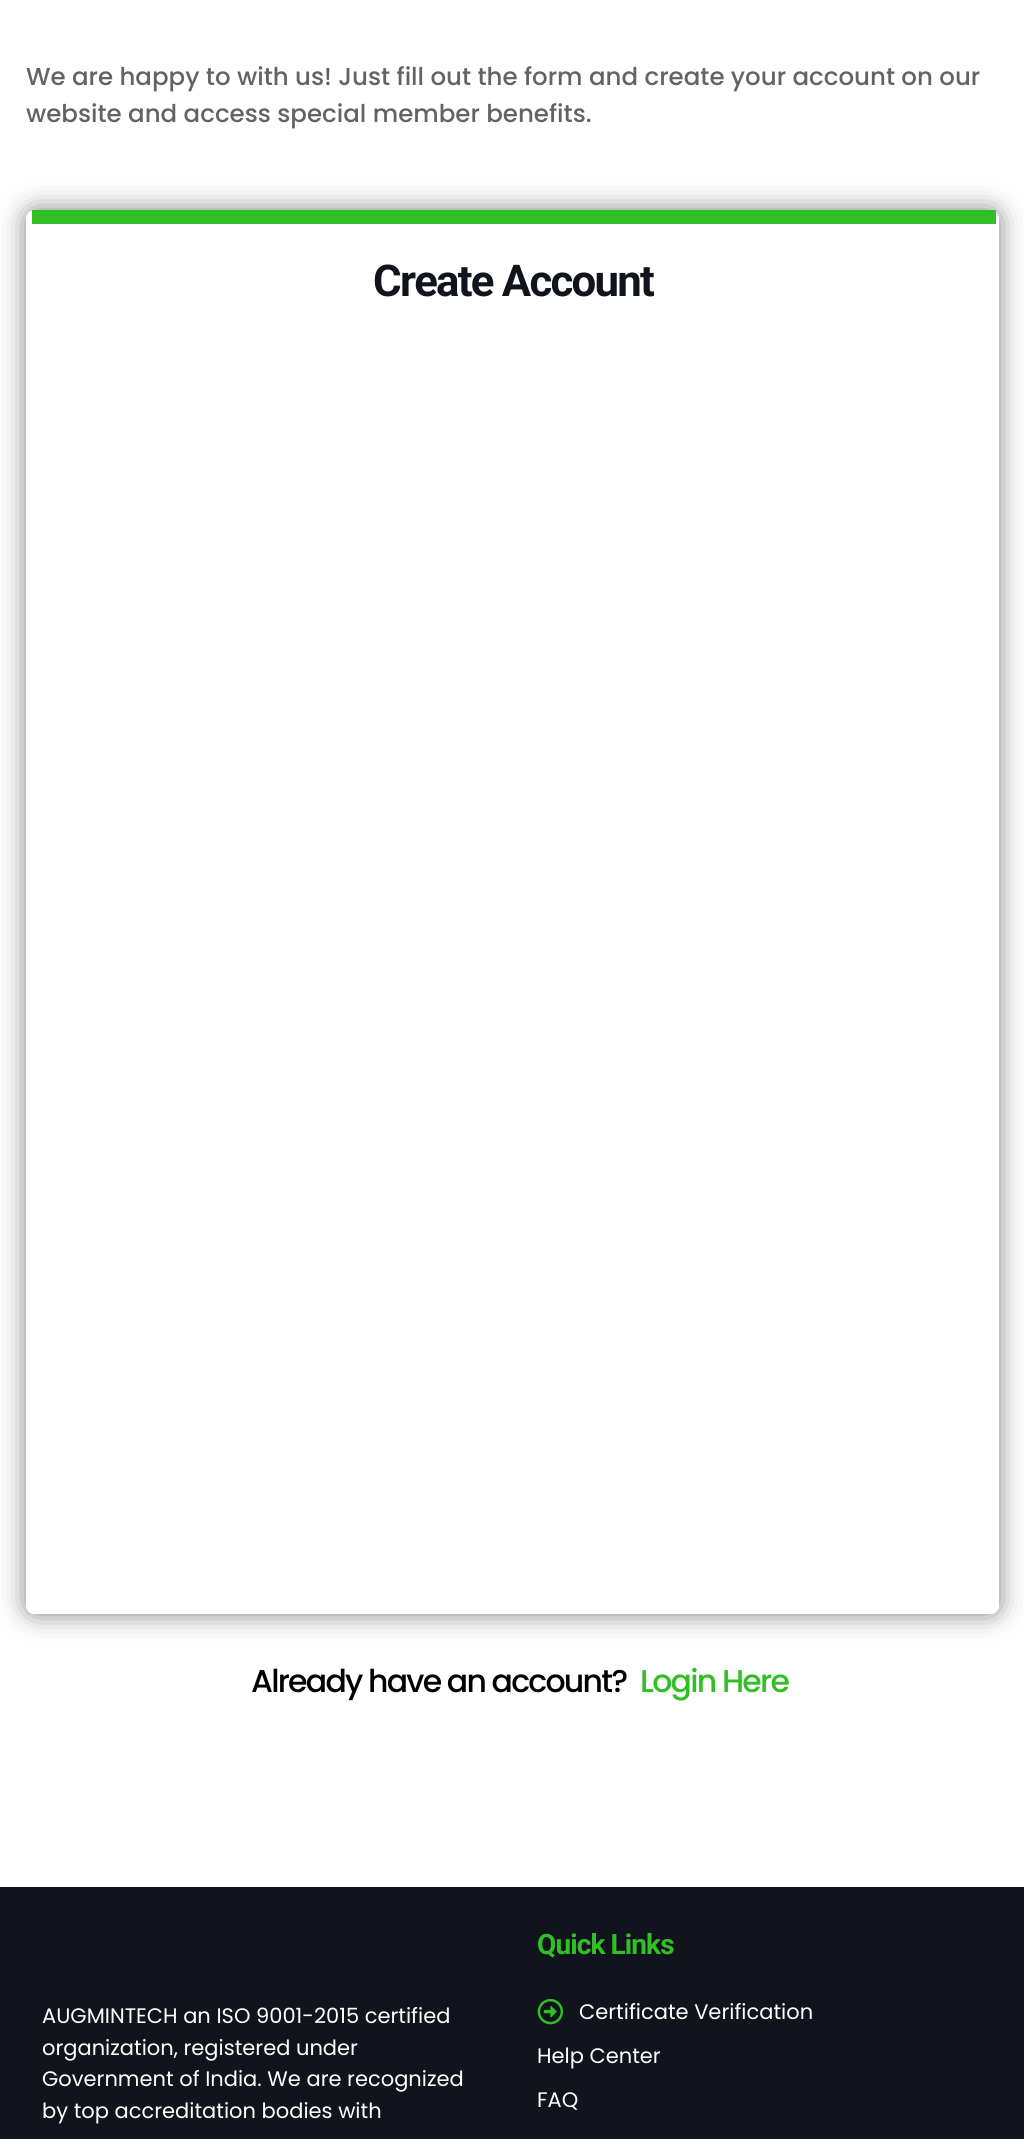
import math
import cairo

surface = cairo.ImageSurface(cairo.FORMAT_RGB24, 1024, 2139)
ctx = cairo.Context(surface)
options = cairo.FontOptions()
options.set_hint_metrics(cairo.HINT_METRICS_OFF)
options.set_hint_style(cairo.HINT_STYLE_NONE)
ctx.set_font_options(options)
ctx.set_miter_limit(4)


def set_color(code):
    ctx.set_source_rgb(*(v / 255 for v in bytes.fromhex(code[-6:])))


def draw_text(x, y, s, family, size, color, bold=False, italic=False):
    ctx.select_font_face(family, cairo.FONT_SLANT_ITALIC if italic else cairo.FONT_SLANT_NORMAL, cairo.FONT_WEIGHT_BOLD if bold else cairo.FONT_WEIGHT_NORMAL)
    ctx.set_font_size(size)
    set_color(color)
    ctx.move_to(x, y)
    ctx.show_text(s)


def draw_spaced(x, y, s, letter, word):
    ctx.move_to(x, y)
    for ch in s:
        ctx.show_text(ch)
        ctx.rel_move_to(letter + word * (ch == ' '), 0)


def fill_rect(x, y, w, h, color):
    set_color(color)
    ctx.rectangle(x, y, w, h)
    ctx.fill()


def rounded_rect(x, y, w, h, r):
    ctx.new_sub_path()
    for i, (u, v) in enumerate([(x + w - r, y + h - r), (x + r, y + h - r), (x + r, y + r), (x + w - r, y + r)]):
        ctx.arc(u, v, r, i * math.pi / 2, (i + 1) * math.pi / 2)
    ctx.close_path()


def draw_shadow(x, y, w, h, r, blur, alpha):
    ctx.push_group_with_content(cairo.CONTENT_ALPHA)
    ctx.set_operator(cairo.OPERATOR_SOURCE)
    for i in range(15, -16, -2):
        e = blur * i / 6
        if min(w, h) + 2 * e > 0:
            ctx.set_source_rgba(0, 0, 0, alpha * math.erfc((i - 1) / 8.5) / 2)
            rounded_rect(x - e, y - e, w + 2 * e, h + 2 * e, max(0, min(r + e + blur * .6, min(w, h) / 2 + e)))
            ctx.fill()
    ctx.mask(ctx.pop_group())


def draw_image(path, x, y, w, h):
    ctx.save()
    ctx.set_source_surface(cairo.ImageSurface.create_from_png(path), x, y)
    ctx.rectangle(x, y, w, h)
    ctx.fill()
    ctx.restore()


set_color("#ffffff")
ctx.paint()
draw_text(26, 85, "We are happy to with us! Just fill out the form and create your account on our", "Poppins Medium", 24.5, "#636363")
draw_text(26, 122, "website and access special member benefits.", "Poppins Medium", 24.5, "#636363")
ctx.save()
ctx.set_fill_rule(cairo.FILL_RULE_EVEN_ODD)
ctx.new_path()
ctx.move_to(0, 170)
ctx.line_to(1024, 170)
ctx.line_to(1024, 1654)
ctx.line_to(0, 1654)
ctx.close_path()
ctx.move_to(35, 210)
ctx.line_to(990, 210)
ctx.curve_to(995, 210, 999, 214, 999, 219)
ctx.line_to(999, 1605)
ctx.curve_to(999, 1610, 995, 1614, 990, 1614)
ctx.line_to(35, 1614)
ctx.curve_to(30, 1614, 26, 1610, 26, 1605)
ctx.line_to(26, 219)
ctx.curve_to(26, 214, 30, 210, 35, 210)
ctx.close_path()
ctx.clip()
set_color("#000000")
draw_shadow(26, 210, 973, 1404, 9, 13, 0.5)
ctx.restore()
set_color("#ffffff")
ctx.new_path()
ctx.move_to(35, 224)
ctx.line_to(999, 224)
ctx.line_to(999, 1605)
ctx.curve_to(999, 1610, 995, 1614, 990, 1614)
ctx.line_to(35, 1614)
ctx.curve_to(30, 1614, 26, 1610, 26, 1605)
ctx.line_to(26, 224)
ctx.close_path()
ctx.fill()
fill_rect(32, 210, 964, 14, "#31bf26")
ctx.select_font_face("Roboto", cairo.FONT_SLANT_NORMAL, cairo.FONT_WEIGHT_BOLD)
ctx.set_font_size(43.75)
set_color("#12141d")
draw_spaced(373, 296, "Create Account", -1.75, 0)
ctx.select_font_face("Poppins Medium")
ctx.set_font_size(31.5)
set_color("#000000")
draw_spaced(251, 1692, "Already have an account?", -1.75, 0)
set_color("#31bf26")
draw_spaced(640, 1692, "Login Here", -1.75, 0)
fill_rect(0, 1887, 1024, 252, "#12141d")
draw_text(42, 2023, "AUGMINTECH an ISO 9001-2015 certified", "Poppins", 21, "#ffffff")
draw_text(42, 2055, "organization, registered under", "Poppins", 21, "#ffffff")
draw_text(42, 2086, "Government of India. We are recognized", "Poppins", 21, "#ffffff")
draw_text(42, 2118, "by top accreditation bodies with", "Poppins", 21, "#ffffff")
ctx.select_font_face("Roboto", cairo.FONT_SLANT_NORMAL, cairo.FONT_WEIGHT_BOLD)
ctx.set_font_size(28)
set_color("#31bf26")
draw_spaced(537, 1954, "Quick Links", -0.9, 0)
draw_image("assets/img1.png", 537, 1999, 27, 26)
draw_text(579, 2019, "Certificate Verification", "Poppins", 21, "#ffffff")
draw_text(537, 2063, "Help Center", "Poppins", 21, "#ffffff")
draw_text(537, 2107, "FAQ", "Poppins", 21, "#ffffff")
surface.write_to_png("output.png")
